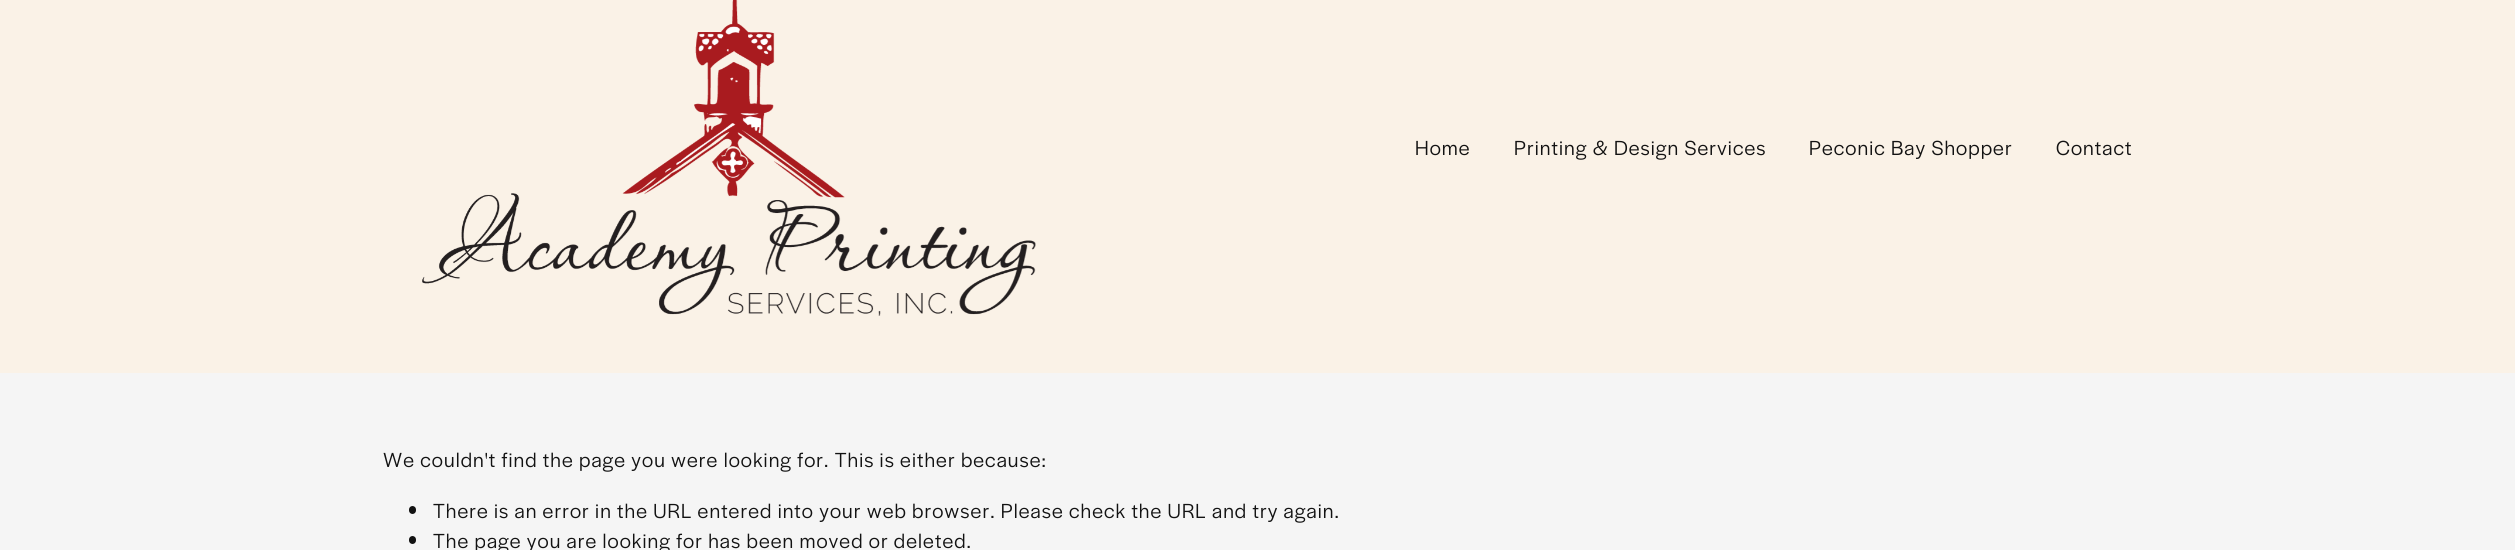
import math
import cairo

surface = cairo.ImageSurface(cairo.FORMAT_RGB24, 2515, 550)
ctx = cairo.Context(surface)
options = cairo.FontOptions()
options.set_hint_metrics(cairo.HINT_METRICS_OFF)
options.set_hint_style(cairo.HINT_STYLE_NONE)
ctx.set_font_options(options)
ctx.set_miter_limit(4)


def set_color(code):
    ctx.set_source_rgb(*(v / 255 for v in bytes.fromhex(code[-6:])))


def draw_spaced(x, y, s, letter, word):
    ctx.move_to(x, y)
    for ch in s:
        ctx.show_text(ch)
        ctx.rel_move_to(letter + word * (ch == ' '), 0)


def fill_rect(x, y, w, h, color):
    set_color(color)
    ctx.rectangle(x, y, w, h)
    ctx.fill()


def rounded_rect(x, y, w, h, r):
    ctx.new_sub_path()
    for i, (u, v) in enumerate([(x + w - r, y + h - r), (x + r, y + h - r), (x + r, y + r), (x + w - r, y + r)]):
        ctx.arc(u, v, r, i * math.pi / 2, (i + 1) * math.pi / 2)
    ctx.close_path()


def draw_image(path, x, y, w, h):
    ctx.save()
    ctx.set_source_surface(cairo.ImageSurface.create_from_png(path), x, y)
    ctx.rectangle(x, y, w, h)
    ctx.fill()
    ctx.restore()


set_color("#f5f5f5")
ctx.paint()
fill_rect(0, 0, 2515, 373, "#faf2e7")
draw_image("assets/img1.png", 422, 0, 614, 316)
ctx.select_font_face("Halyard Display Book")
ctx.set_font_size(21.25)
set_color("#121212")
draw_spaced(1415, 155, "Home", 1.05, 0)
draw_spaced(1514, 155, "Printing & Design Services", 1.05, 0)
draw_spaced(1809, 155, "Peconic Bay Shopper", 1.05, 0)
draw_spaced(2056, 155, "Contact", 1.05, 0)
draw_spaced(383, 467, "We couldn't find the page you were looking for. This is either because:", 1.05, 0)
rounded_rect(409, 506, 7, 8, 3.5)
ctx.fill()
draw_spaced(433, 518, "There is an error in the URL entered into your web browser. Please check the URL and try again.", 1.05, 0)
rounded_rect(409, 536, 7, 8, 3.5)
ctx.fill()
draw_spaced(433, 548, "The page you are looking for has been moved or deleted.", 1.05, 0)
surface.write_to_png("output.png")
